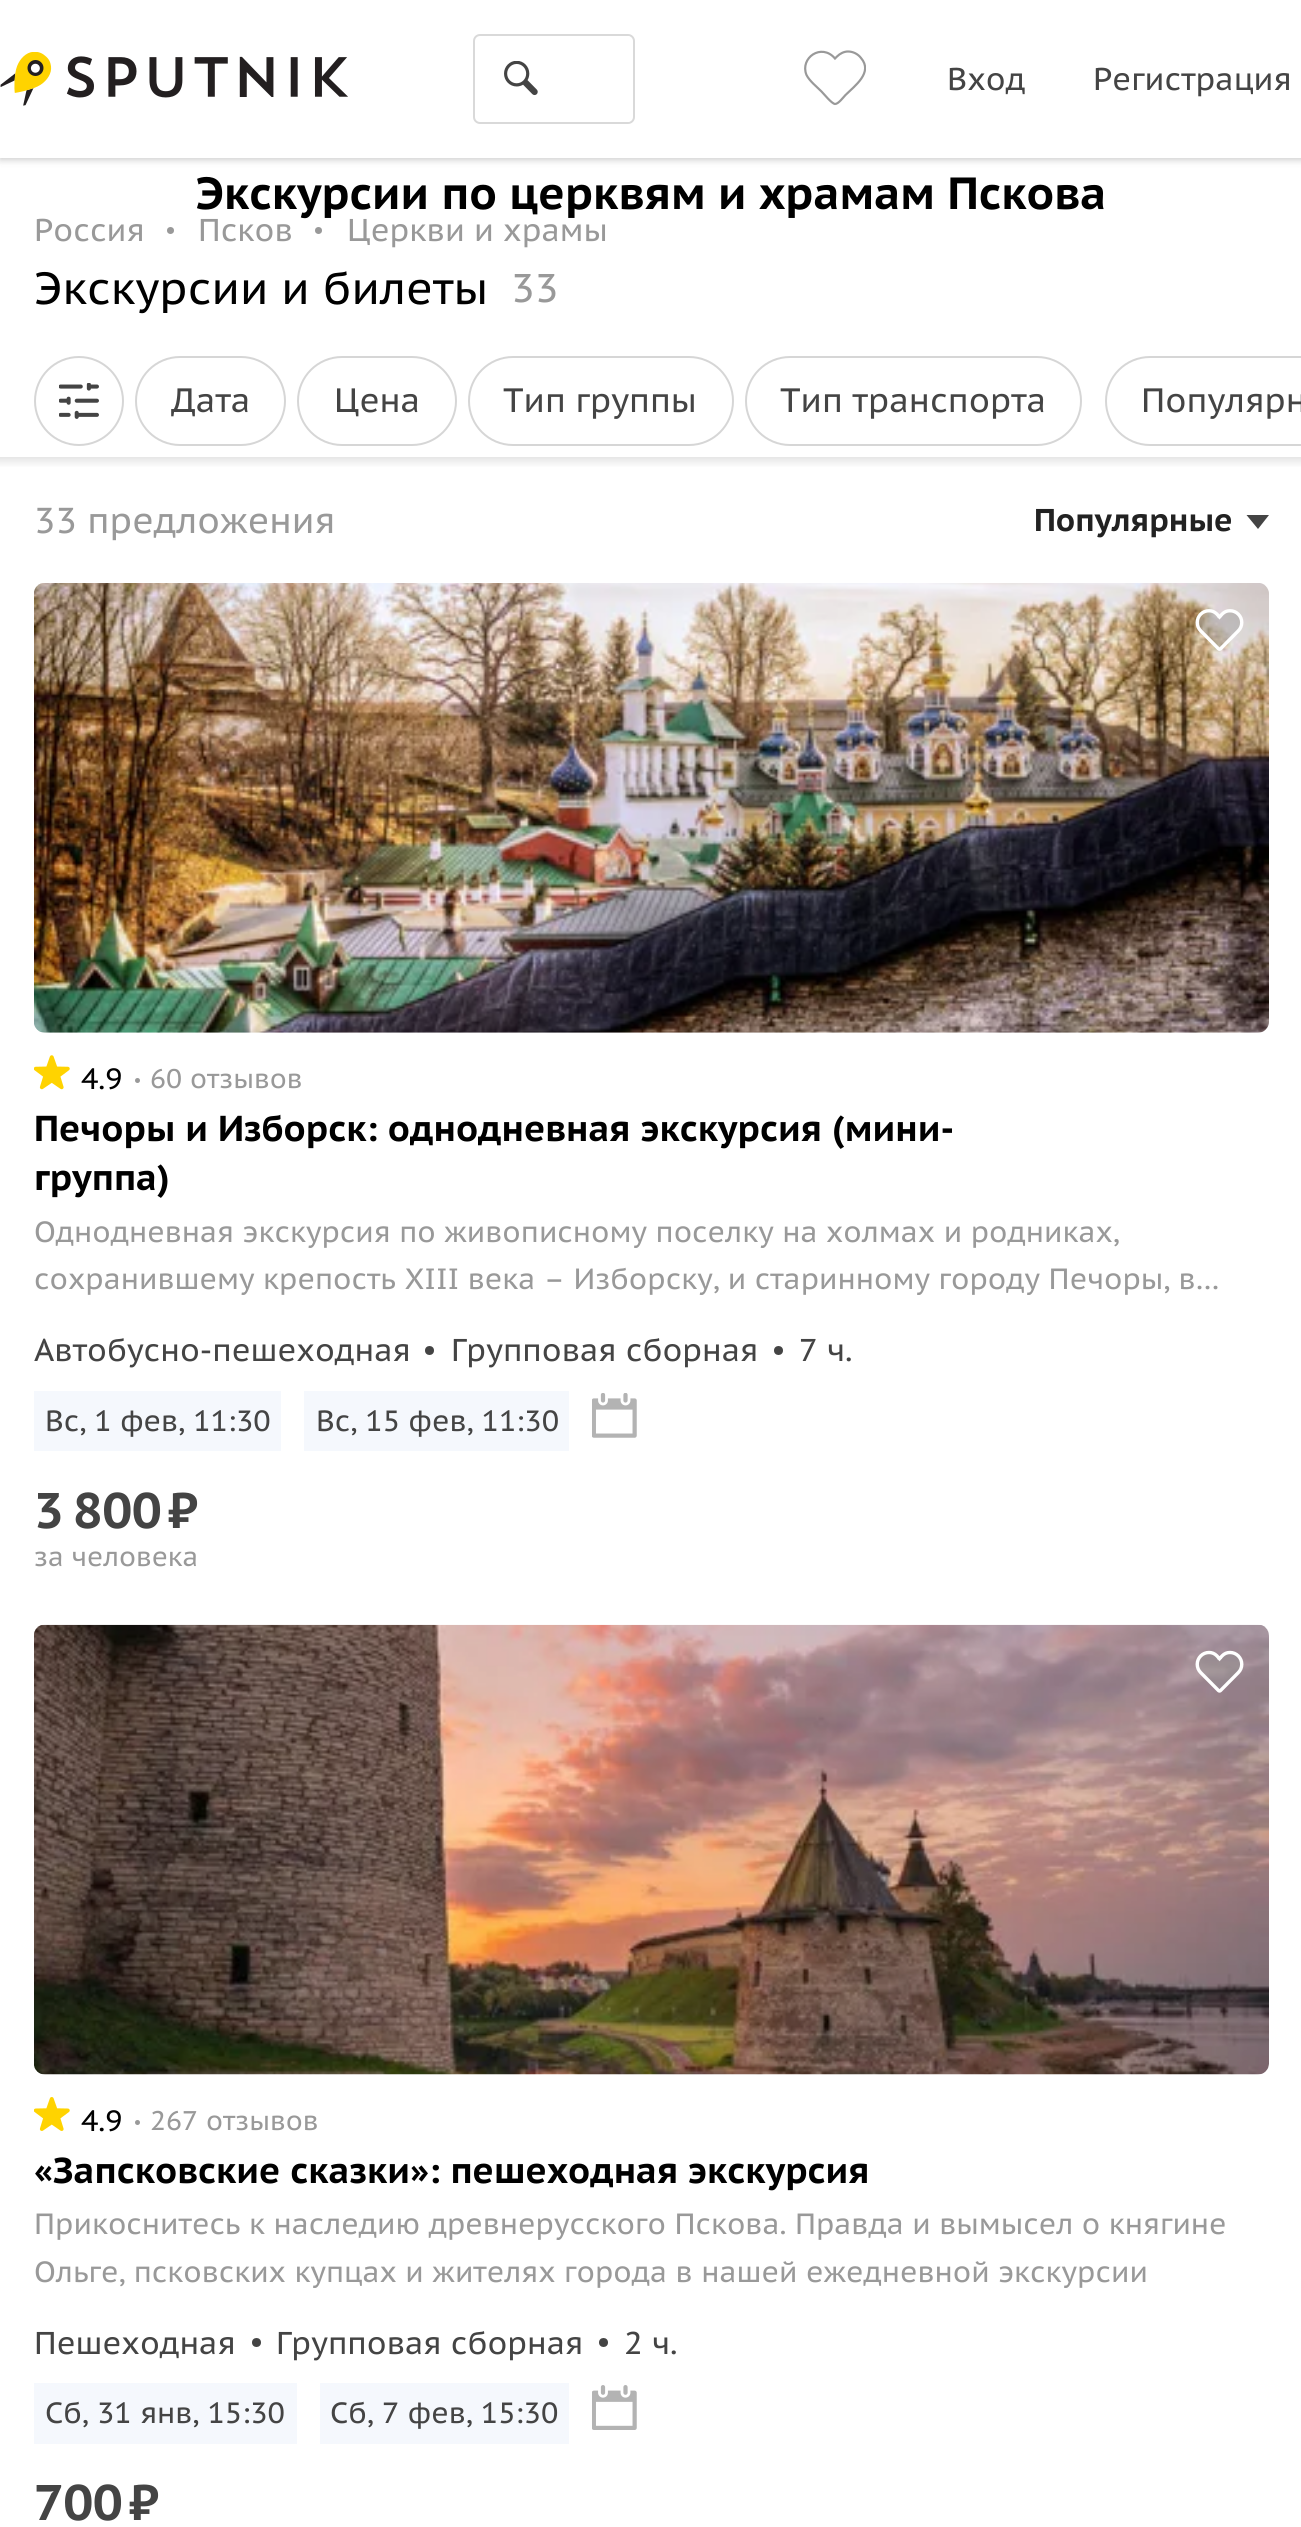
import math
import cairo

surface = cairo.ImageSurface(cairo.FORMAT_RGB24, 1301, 2527)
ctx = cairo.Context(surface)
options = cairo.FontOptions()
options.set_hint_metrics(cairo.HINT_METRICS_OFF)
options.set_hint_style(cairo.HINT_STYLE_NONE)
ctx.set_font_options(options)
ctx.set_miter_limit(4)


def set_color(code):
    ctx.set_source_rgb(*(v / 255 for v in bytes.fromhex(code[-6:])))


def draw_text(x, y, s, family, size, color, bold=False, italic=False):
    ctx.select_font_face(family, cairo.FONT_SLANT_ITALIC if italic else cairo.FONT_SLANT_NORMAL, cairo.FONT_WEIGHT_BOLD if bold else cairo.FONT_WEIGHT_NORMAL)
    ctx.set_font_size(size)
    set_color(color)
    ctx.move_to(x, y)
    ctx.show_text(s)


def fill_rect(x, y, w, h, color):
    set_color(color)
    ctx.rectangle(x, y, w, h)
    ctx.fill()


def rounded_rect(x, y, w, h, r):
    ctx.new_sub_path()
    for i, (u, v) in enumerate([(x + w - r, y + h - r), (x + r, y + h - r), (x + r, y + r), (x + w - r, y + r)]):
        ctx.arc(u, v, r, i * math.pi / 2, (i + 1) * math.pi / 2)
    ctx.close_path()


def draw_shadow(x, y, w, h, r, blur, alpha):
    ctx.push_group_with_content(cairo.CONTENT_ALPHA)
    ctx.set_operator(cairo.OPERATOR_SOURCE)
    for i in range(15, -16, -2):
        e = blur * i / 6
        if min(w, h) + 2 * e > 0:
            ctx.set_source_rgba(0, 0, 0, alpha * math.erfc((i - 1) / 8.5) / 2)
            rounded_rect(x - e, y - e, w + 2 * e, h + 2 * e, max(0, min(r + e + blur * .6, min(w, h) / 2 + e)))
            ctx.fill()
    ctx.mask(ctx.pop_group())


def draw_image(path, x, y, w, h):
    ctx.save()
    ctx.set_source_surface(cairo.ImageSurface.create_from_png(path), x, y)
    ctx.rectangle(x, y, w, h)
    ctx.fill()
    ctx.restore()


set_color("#ffffff")
ctx.paint()
set_color("#000000")
draw_shadow(0, 2, 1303, 158, 0, 3.5, 0.2)
fill_rect(0, 0, 1301, 158, "#ffffff")
draw_image("assets/img1.png", 0, 52, 348, 54)
draw_image("assets/img2.png", 504, 61, 34, 35)
rounded_rect(474, 35, 160, 88, 6)
set_color("#d9d9d9")
ctx.stroke()
set_color("#ffffff")
ctx.new_path()
ctx.move_to(565, 36)
ctx.line_to(627, 36)
ctx.curve_to(630, 36, 632, 38, 632, 41)
ctx.line_to(632, 117)
ctx.curve_to(632, 120, 630, 122, 627, 122)
ctx.line_to(565, 122)
ctx.close_path()
ctx.fill()
ctx.save()
ctx.rectangle(803, 50, 63, 58)
ctx.clip()
ctx.new_path()
ctx.move_to(848, 51.5)
ctx.curve_to(844, 51.5, 840, 53.5, 837, 56.5)
ctx.line_to(835, 58.5)
ctx.curve_to(821.5, 42.5, 799.5, 58, 806.5, 75)
ctx.curve_to(809.5, 81, 817, 87, 821.5, 91.5)
ctx.curve_to(824, 94, 831.5, 103.5, 835, 104)
ctx.curve_to(838.5, 104, 843.5, 97, 845.5, 95)
ctx.curve_to(854.5, 86, 873.5, 72.5, 861, 58)
ctx.curve_to(858, 54, 853, 51.5, 848, 51.5)
set_color("#999999")
ctx.set_line_width(2.2)
ctx.stroke()
ctx.restore()
draw_text(947, 90, "Вход", "PT Sans Caption", 31.5, "#444444")
draw_text(1093, 90, "Регистрация", "PT Sans Caption", 31.5, "#444444")
draw_text(196, 209, "Экскурсии по церквям и храмам Пскова", "PT Sans Caption", 45, "#000000", bold=True)
draw_text(34, 241, "Россия", "PT Sans Caption", 31.5, "#999999")
ctx.new_path()
ctx.arc(170.5, 230.5, 3.5, 0, 2 * math.pi)
ctx.fill()
draw_text(198, 241, "Псков", "PT Sans Caption", 31.5, "#999999")
ctx.new_path()
ctx.arc(318.5, 230.5, 3.5, 0, 2 * math.pi)
ctx.fill()
draw_text(347, 241, "Церкви и храмы", "PT Sans Caption", 31.5, "#999999")
draw_text(34, 304, "Экскурсии и билеты", "PT Sans Caption", 45, "#000000")
draw_text(511, 302, "33", "PT Sans Caption", 40, "#999999")
ctx.new_path()
ctx.arc(79, 401, 44, 0, 2 * math.pi)
set_color("#d6d6d6")
ctx.stroke()
draw_image("assets/img3.png", 59, 383, 40, 36)
rounded_rect(136, 357, 149, 88, 44)
ctx.stroke()
draw_text(171, 412, "Дата", "PT Sans Caption", 33.75, "#444444")
rounded_rect(298, 357, 158, 88, 44)
set_color("#d6d6d6")
ctx.stroke()
draw_text(334, 412, "Цена", "PT Sans Caption", 33.75, "#444444")
rounded_rect(469, 357, 264, 88, 44)
set_color("#d6d6d6")
ctx.stroke()
draw_text(503, 412, "Тип группы", "PT Sans Caption", 33.75, "#444444")
rounded_rect(746, 357, 335, 88, 44)
set_color("#d6d6d6")
ctx.stroke()
draw_text(780, 412, "Тип транспорта", "PT Sans Caption", 33.75, "#444444")
rounded_rect(1106, 357, 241, 88, 44)
set_color("#d6d6d6")
ctx.stroke()
draw_text(1141, 412, "Популярн", "PT Sans Caption", 33.75, "#444444")
gradient = cairo.LinearGradient(651, 468, 651, 457)
gradient.add_color_stop_rgba(0, 1, 1, 1, 1)
gradient.add_color_stop_rgba(1, 0.902, 0.902, 0.902, 1)
ctx.set_source(gradient)
ctx.rectangle(0, 457, 1301, 10)
ctx.fill()
draw_text(34, 533, "33 предложения", "PT Sans Caption", 36, "#999999")
draw_text(1034, 531, "Популярные", "PT Sans Caption", 31.5, "#222222", bold=True)
set_color("#444444")
ctx.new_path()
ctx.move_to(1246.5, 515)
ctx.line_to(1269, 515)
ctx.line_to(1258, 529)
ctx.close_path()
ctx.fill()
draw_image("assets/img4.png", 34, 583, 1235, 450)
draw_image("assets/img5.png", 1195, 609, 49, 42)
draw_image("assets/img6.png", 34, 1055, 36, 35)
draw_text(81, 1089, "4.9", "PT Sans Caption", 29.25, "#000000")
set_color("#999999")
ctx.new_path()
ctx.arc(137.5, 1080.5, 2.5, 0, 2 * math.pi)
ctx.fill()
draw_text(150, 1088, "60 отзывов", "PT Sans Caption", 27, "#999999")
draw_text(34, 1141, "Печоры и Изборск: однодневная экскурсия (мини-", "PT Sans Caption", 36, "#000000", bold=True)
draw_text(34, 1190, "группа)", "PT Sans Caption", 36, "#000000", bold=True)
draw_text(34, 1242, "Однодневная экскурсия по живописному поселку на холмах и родниках,", "PT Sans Caption", 29.25, "#999999")
draw_text(34, 1289, "сохранившему крепость XIII века – Изборску, и старинному городу Печоры, в…", "PT Sans Caption", 29.25, "#999999")
draw_text(34, 1361, "Автобусно-пешеходная", "PT Sans Caption", 31.5, "#444444")
ctx.new_path()
ctx.arc(429.5, 1350.5, 4.5, 0, 2 * math.pi)
ctx.fill()
draw_text(451, 1361, "Групповая сборная", "PT Sans Caption", 31.5, "#444444")
ctx.new_path()
ctx.arc(778.5, 1350.5, 4.5, 0, 2 * math.pi)
ctx.fill()
draw_text(799, 1361, "7 ч.", "PT Sans Caption", 31.5, "#444444")
draw_image("assets/img7.png", 592, 1393, 45, 45)
fill_rect(34, 1391, 247, 60, "#f5f8fd")
draw_text(45, 1431, "Вс, 1 фев, 11:30", "PT Sans Caption", 29.25, "#444444")
fill_rect(304, 1391, 265, 60, "#f5f8fd")
draw_text(316, 1431, "Вс, 15 фев, 11:30", "PT Sans Caption", 29.25, "#444444")
draw_text(34, 1528, "3", "PT Sans Caption", 50, "#444444", bold=True)
draw_text(73, 1528, "800", "PT Sans Caption", 50, "#444444", bold=True)
draw_text(168, 1528, "₽", "PT Sans Caption", 50, "#444444", bold=True)
draw_text(34, 1566, "за человека", "PT Sans Caption", 27, "#999999")
draw_image("assets/img8.png", 34, 1624, 1235, 451)
draw_image("assets/img9.png", 1195, 1650, 49, 43)
draw_image("assets/img10.png", 34, 2097, 36, 34)
draw_text(81, 2131, "4.9", "PT Sans Caption", 29.25, "#000000")
set_color("#999999")
ctx.new_path()
ctx.arc(137.5, 2122.5, 2.5, 0, 2 * math.pi)
ctx.fill()
draw_text(150, 2130, "267 отзывов", "PT Sans Caption", 27, "#999999")
draw_text(34, 2183, "«Запсковские сказки»: пешеходная экскурсия", "PT Sans Caption", 36, "#000000", bold=True)
draw_text(34, 2234, "Прикоснитесь к наследию древнерусского Пскова. Правда и вымысел о княгине", "PT Sans Caption", 29.25, "#999999")
draw_text(34, 2282, "Ольге, псковских купцах и жителях города в нашей ежедневной экскурсии", "PT Sans Caption", 29.25, "#999999")
draw_text(34, 2354, "Пешеходная", "PT Sans Caption", 31.5, "#444444")
ctx.new_path()
ctx.arc(256.5, 2342.5, 4.5, 0, 2 * math.pi)
ctx.fill()
draw_text(276, 2354, "Групповая сборная", "PT Sans Caption", 31.5, "#444444")
ctx.new_path()
ctx.arc(603.5, 2342.5, 4.5, 0, 2 * math.pi)
ctx.fill()
draw_text(624, 2354, "2 ч.", "PT Sans Caption", 31.5, "#444444")
draw_image("assets/img11.png", 592, 2385, 45, 45)
fill_rect(34, 2383, 263, 61, "#f5f8fd")
draw_text(45, 2423, "Сб, 31 янв, 15:30", "PT Sans Caption", 29.25, "#444444")
fill_rect(320, 2383, 249, 61, "#f5f8fd")
draw_text(330, 2423, "Сб, 7 фев, 15:30", "PT Sans Caption", 29.25, "#444444")
draw_text(34, 2520, "700", "PT Sans Caption", 50, "#444444", bold=True)
draw_text(129, 2520, "₽", "PT Sans Caption", 50, "#444444", bold=True)
surface.write_to_png("output.png")
